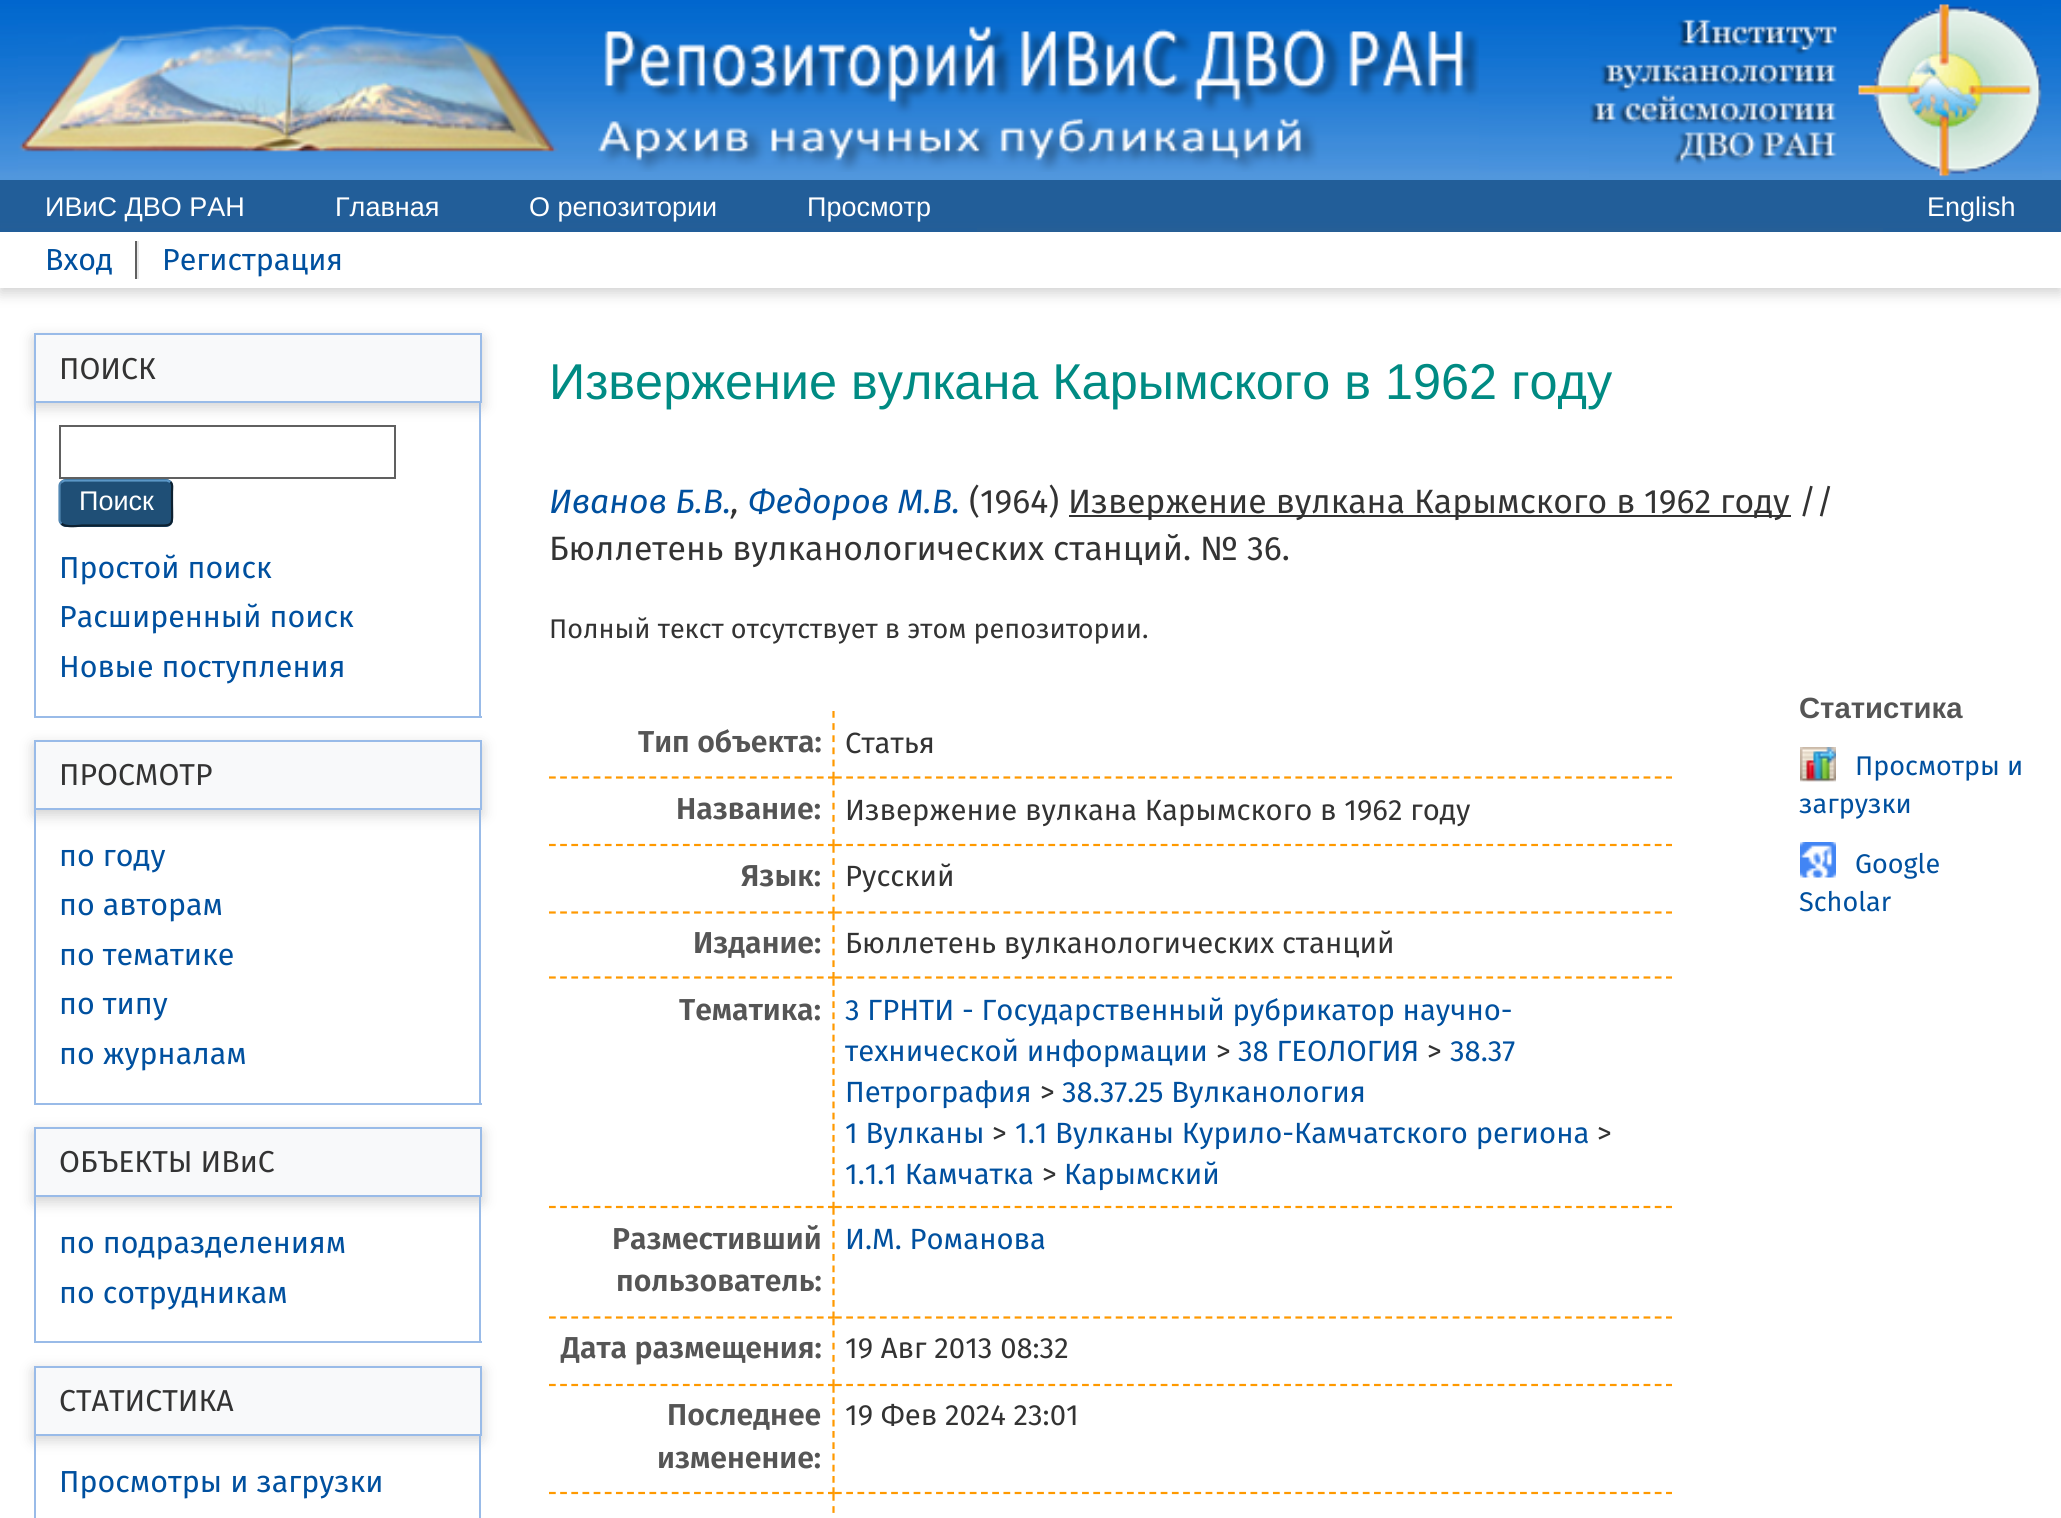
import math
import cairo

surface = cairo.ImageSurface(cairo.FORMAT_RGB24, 2061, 1518)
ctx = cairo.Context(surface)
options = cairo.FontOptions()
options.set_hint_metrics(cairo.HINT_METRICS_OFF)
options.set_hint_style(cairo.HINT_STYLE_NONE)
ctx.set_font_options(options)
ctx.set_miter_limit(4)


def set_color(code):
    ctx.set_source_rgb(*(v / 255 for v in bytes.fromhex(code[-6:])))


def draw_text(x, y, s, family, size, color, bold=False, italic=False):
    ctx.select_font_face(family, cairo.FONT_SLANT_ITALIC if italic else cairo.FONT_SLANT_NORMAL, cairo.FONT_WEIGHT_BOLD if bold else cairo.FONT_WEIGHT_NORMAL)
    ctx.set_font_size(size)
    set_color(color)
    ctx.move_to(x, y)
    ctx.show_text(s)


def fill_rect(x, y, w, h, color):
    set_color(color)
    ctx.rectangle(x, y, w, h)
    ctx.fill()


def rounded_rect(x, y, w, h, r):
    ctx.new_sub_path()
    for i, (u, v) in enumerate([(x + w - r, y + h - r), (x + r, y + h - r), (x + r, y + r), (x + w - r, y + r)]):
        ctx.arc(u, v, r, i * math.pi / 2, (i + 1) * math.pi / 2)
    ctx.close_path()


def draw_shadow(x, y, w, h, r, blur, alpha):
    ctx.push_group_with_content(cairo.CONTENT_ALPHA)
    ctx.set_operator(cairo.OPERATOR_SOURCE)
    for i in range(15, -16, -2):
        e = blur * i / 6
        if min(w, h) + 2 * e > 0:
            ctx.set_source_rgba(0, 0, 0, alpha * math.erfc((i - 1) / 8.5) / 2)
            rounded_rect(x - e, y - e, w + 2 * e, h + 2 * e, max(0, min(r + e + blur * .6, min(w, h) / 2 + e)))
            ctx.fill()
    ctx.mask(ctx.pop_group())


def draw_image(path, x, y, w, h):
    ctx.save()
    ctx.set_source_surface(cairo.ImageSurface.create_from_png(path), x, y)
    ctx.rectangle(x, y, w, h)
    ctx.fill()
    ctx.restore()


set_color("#ffffff")
ctx.paint()
fill_rect(0, 180, 2061, 52, "#225e99")
draw_image("assets/img1.png", 0, 0, 2061, 180)
draw_image("assets/img2.png", 18, 23, 1461, 149)
draw_image("assets/img3.png", 1589, 4, 453, 174)
set_color("#646464")
draw_shadow(0, 236, 2061, 57, 0, 7, 0.3)
fill_rect(0, 228, 977, 4, "#225e99")
draw_text(45, 216, "ИВиС ДВО РАН", "Liberation Sans", 27, "#ffffff")
draw_text(335, 216, "Главная", "Liberation Sans", 27, "#ffffff")
draw_text(529, 216, "О репозитории", "Liberation Sans", 27, "#ffffff")
draw_text(807, 216, "Просмотр", "Liberation Sans", 27, "#ffffff")
fill_rect(1883, 228, 178, 4, "#225e99")
draw_text(1927, 216, "English", "Liberation Sans", 27, "#ffffff")
fill_rect(0, 232, 2061, 56, "#ffffff")
draw_text(45, 270, "Вход", "Fira Sans", 30.4, "#00509f")
fill_rect(135, 241, 2, 38, "#606060")
draw_text(162, 270, "Регистрация", "Fira Sans", 30.4, "#00509f")
fill_rect(137, 241, 2, 38, "#e8e8e8")
set_color("#646464")
draw_shadow(34, 338, 448, 69, 0, 7, 0.3)
set_color("#f8f9fa")
ctx.rectangle(35, 334, 446, 68)
ctx.fill_preserve()
set_color("#99bbe8")
ctx.stroke()
draw_text(59, 379, "ПОИСК", "Fira Sans", 30.25, "#333333")
fill_rect(479, 403, 2, 315, "#99bbe8")
fill_rect(34, 716, 448, 2, "#99bbe8")
fill_rect(34, 403, 2, 315, "#99bbe8")
ctx.rectangle(60, 426, 335, 52)
set_color("#606060")
ctx.stroke()
set_color("#1f4f76")
rounded_rect(59, 479, 114, 48, 7)
ctx.fill()
ctx.new_path()
ctx.move_to(61.5, 482)
ctx.line_to(64.5, 480.5)
ctx.line_to(167, 480.5)
ctx.line_to(170.5, 482)
set_color("#5b97c7")
ctx.set_line_width(2.2)
ctx.stroke()
ctx.new_path()
ctx.move_to(170.5, 482)
ctx.curve_to(173, 484.5, 172, 488.5, 172, 491.5)
ctx.line_to(172, 503)
ctx.curve_to(172, 528, 175.5, 525.5, 149.5, 525.5)
ctx.line_to(82, 525.5)
ctx.curve_to(80.5, 525.5, 65.5, 528, 61.5, 523.5)
set_color("#0d2131")
ctx.stroke()
ctx.new_path()
ctx.move_to(61.5, 523.5)
ctx.curve_to(60, 522.5, 59.5, 521, 59.5, 520)
ctx.line_to(59.5, 486)
ctx.curve_to(59.5, 484.5, 60, 483, 61.5, 482)
set_color("#5287b3")
ctx.stroke()
draw_text(79, 510, "Поиск", "Liberation Sans", 27, "#ffffff")
draw_text(59, 578, "Простой поиск", "Fira Sans", 30.4, "#00509f")
draw_text(59, 627, "Расширенный поиск", "Fira Sans", 30.4, "#00509f")
draw_text(59, 677, "Новые поступления", "Fira Sans", 30.4, "#00509f")
set_color("#646464")
draw_shadow(34, 745, 448, 70, 0, 7, 0.3)
set_color("#f8f9fa")
ctx.rectangle(35, 741, 446, 68)
ctx.fill_preserve()
set_color("#99bbe8")
ctx.set_line_width(2)
ctx.stroke()
draw_text(59, 785, "ПРОСМОТР", "Fira Sans", 30.25, "#333333")
fill_rect(479, 810, 2, 295, "#99bbe8")
fill_rect(34, 1103, 448, 2, "#99bbe8")
fill_rect(34, 810, 2, 295, "#99bbe8")
draw_text(59, 866, "по году", "Fira Sans", 30.4, "#00509f")
draw_text(59, 915, "по авторам", "Fira Sans", 30.4, "#00509f")
draw_text(59, 965, "по тематике", "Fira Sans", 30.4, "#00509f")
draw_text(59, 1014, "по типу", "Fira Sans", 30.4, "#00509f")
draw_text(59, 1064, "по журналам", "Fira Sans", 30.4, "#00509f")
set_color("#646464")
draw_shadow(34, 1132, 448, 70, 0, 7, 0.3)
set_color("#f8f9fa")
ctx.rectangle(35, 1128, 446, 68)
ctx.fill_preserve()
set_color("#99bbe8")
ctx.stroke()
draw_text(59, 1172, "ОБЪЕКТЫ ИВиС", "Fira Sans", 30.25, "#333333")
fill_rect(479, 1197, 2, 146, "#99bbe8")
fill_rect(34, 1341, 448, 2, "#99bbe8")
fill_rect(34, 1197, 2, 146, "#99bbe8")
draw_text(59, 1253, "по подразделениям", "Fira Sans", 30.4, "#00509f")
draw_text(59, 1303, "по сотрудникам", "Fira Sans", 30.4, "#00509f")
set_color("#646464")
draw_shadow(34, 1370, 448, 70, 0, 7, 0.3)
set_color("#f8f9fa")
ctx.rectangle(35, 1367, 446, 68)
ctx.fill_preserve()
set_color("#99bbe8")
ctx.stroke()
draw_text(59, 1411, "СТАТИСТИКА", "Fira Sans", 30.25, "#333333")
fill_rect(479, 1436, 2, 82, "#99bbe8")
fill_rect(34, 1436, 2, 82, "#99bbe8")
draw_text(59, 1492, "Просмотры и загрузки", "Fira Sans", 30.4, "#00509f")
draw_text(549, 399, "Извержение вулкана Карымского в 1962 году", "Liberation Sans", 50.4, "#008b83")
draw_text(549, 513, "Иванов Б.В.", "Fira Sans", 33.75, "#00509f", italic=True)
draw_text(731, 513, ",", "Fira Sans", 33.75, "#333333", italic=True)
draw_text(748, 513, "Федоров М.В.", "Fira Sans", 33.75, "#00509f", italic=True)
draw_text(969, 513, "(1964)", "Fira Sans", 33.75, "#333333")
fill_rect(1069, 515, 722, 2, "#333333")
draw_text(1068, 513, "Извержение вулкана Карымского в 1962 году //", "Fira Sans", 33.75, "#333333")
draw_text(549, 560, "Бюллетень вулканологических станций. № 36.", "Fira Sans", 33.75, "#333333")
draw_text(549, 638, "Полный текст отсутствует в этом репозитории.", "Fira Sans", 27, "#333333")
ctx.new_path()
ctx.move_to(833.5, 711)
ctx.line_to(833.5, 778.5)
set_color("#ff9900")
ctx.set_line_width(2.2)
ctx.set_dash([6.75, 5.4])
ctx.stroke()
ctx.new_path()
ctx.move_to(549, 777.5)
ctx.line_to(835, 777.5)
ctx.set_dash([6.75, 4.41])
ctx.stroke()
draw_text(638, 752, "Тип объекта:", "Fira Sans SemiBold", 30.25, "#555555")
ctx.new_path()
ctx.move_to(835, 777.5)
ctx.line_to(1672, 777.5)
set_color("#ff9900")
ctx.set_dash([6.75, 4.48])
ctx.stroke()
draw_text(845, 753, "Статья", "Fira Sans", 29.25, "#333333")
ctx.new_path()
ctx.move_to(833.5, 778.5)
ctx.line_to(833.5, 846)
set_color("#ff9900")
ctx.set_dash([6.75, 5.4])
ctx.stroke()
ctx.new_path()
ctx.move_to(549, 845)
ctx.line_to(835, 845)
ctx.set_dash([6.75, 4.41])
ctx.stroke()
draw_text(676, 819, "Название:", "Fira Sans SemiBold", 30.25, "#555555")
ctx.new_path()
ctx.move_to(835, 845)
ctx.line_to(1672, 845)
set_color("#ff9900")
ctx.set_dash([6.75, 4.48])
ctx.stroke()
draw_text(845, 820, "Извержение вулкана Карымского в 1962 году", "Fira Sans", 29.25, "#333333")
ctx.new_path()
ctx.move_to(833.5, 846)
ctx.line_to(833.5, 913.5)
set_color("#ff9900")
ctx.set_dash([6.75, 5.4])
ctx.stroke()
ctx.new_path()
ctx.move_to(549, 912.5)
ctx.line_to(835, 912.5)
ctx.set_dash([6.75, 4.41])
ctx.stroke()
draw_text(741, 886, "Язык:", "Fira Sans SemiBold", 30.25, "#555555")
ctx.new_path()
ctx.move_to(835, 912.5)
ctx.line_to(1672, 912.5)
set_color("#ff9900")
ctx.set_dash([6.75, 4.48])
ctx.stroke()
draw_text(845, 886, "Русский", "Fira Sans", 29.25, "#333333")
ctx.new_path()
ctx.move_to(833.5, 913.5)
ctx.line_to(833.5, 979)
set_color("#ff9900")
ctx.set_dash([6.75, 4.95])
ctx.stroke()
ctx.new_path()
ctx.move_to(549, 977.5)
ctx.line_to(835, 977.5)
ctx.set_dash([6.75, 4.41])
ctx.stroke()
draw_text(693, 953, "Издание:", "Fira Sans SemiBold", 30.25, "#555555")
ctx.new_path()
ctx.move_to(835, 977.5)
ctx.line_to(1672, 977.5)
set_color("#ff9900")
ctx.set_dash([6.75, 4.48])
ctx.stroke()
draw_text(845, 953, "Бюллетень вулканологических станций", "Fira Sans", 29.25, "#333333")
ctx.new_path()
ctx.move_to(833.5, 979)
ctx.line_to(833.5, 1208)
set_color("#ff9900")
ctx.set_dash([6.75, 4.39])
ctx.stroke()
ctx.new_path()
ctx.move_to(549, 1207)
ctx.line_to(835, 1207)
ctx.set_dash([6.75, 4.41])
ctx.stroke()
draw_text(679, 1020, "Тематика:", "Fira Sans SemiBold", 30.25, "#555555")
ctx.new_path()
ctx.move_to(835, 1207)
ctx.line_to(1672, 1207)
set_color("#ff9900")
ctx.set_dash([6.75, 4.48])
ctx.stroke()
draw_text(845, 1020, "3 ГРНТИ - Государственный рубрикатор научно-", "Fira Sans", 29.25, "#00509f")
draw_text(845, 1061, "технической информации", "Fira Sans", 29.25, "#00509f")
draw_text(1216, 1061, ">", "Fira Sans", 29.25, "#333333")
draw_text(1238, 1061, "38 ГЕОЛОГИЯ", "Fira Sans", 29.25, "#00509f")
draw_text(1427, 1061, ">", "Fira Sans", 29.25, "#333333")
draw_text(1450, 1061, "38.37", "Fira Sans", 29.25, "#00509f")
draw_text(845, 1102, "Петрография", "Fira Sans", 29.25, "#00509f")
draw_text(1040, 1102, ">", "Fira Sans", 29.25, "#333333")
draw_text(1062, 1102, "38.37.25 Вулканология", "Fira Sans", 29.25, "#00509f")
draw_text(845, 1143, "1 Вулканы", "Fira Sans", 29.25, "#00509f")
draw_text(992, 1143, ">", "Fira Sans", 29.25, "#333333")
draw_text(1015, 1143, "1.1 Вулканы Курило-Камчатского региона", "Fira Sans", 29.25, "#00509f")
draw_text(1597, 1143, ">", "Fira Sans", 29.25, "#333333")
draw_text(845, 1184, "1.1.1 Камчатка", "Fira Sans", 29.25, "#00509f")
draw_text(1042, 1184, ">", "Fira Sans", 29.25, "#333333")
draw_text(1064, 1184, "Карымский", "Fira Sans", 29.25, "#00509f")
ctx.new_path()
ctx.move_to(833.5, 1208)
ctx.line_to(833.5, 1318.5)
set_color("#ff9900")
ctx.set_dash([6.75, 4.75])
ctx.stroke()
ctx.new_path()
ctx.move_to(549, 1317.5)
ctx.line_to(835, 1317.5)
ctx.set_dash([6.75, 4.41])
ctx.stroke()
draw_text(612, 1249, "Разместивший", "Fira Sans SemiBold", 30.25, "#555555")
draw_text(616, 1291, "пользователь:", "Fira Sans SemiBold", 30.25, "#555555")
ctx.new_path()
ctx.move_to(835, 1317.5)
ctx.line_to(1672, 1317.5)
set_color("#ff9900")
ctx.set_dash([6.75, 4.48])
ctx.stroke()
draw_text(845, 1249, "И.М. Романова", "Fira Sans", 29.25, "#00509f")
ctx.new_path()
ctx.move_to(833.5, 1318.5)
ctx.line_to(833.5, 1386)
set_color("#ff9900")
ctx.set_dash([6.75, 5.4])
ctx.stroke()
ctx.new_path()
ctx.move_to(549, 1385)
ctx.line_to(835, 1385)
ctx.set_dash([6.75, 4.41])
ctx.stroke()
draw_text(561, 1358, "Дата размещения:", "Fira Sans SemiBold", 30.25, "#555555")
ctx.new_path()
ctx.move_to(835, 1385)
ctx.line_to(1672, 1385)
set_color("#ff9900")
ctx.set_dash([6.75, 4.48])
ctx.stroke()
draw_text(845, 1358, "19 Авг 2013 08:32", "Fira Sans", 29.25, "#333333")
ctx.new_path()
ctx.move_to(833.5, 1386)
ctx.line_to(833.5, 1494)
set_color("#ff9900")
ctx.set_dash([6.75, 4.5])
ctx.stroke()
ctx.new_path()
ctx.move_to(549, 1493)
ctx.line_to(835, 1493)
ctx.set_dash([6.75, 4.41])
ctx.stroke()
draw_text(667, 1425, "Последнее", "Fira Sans SemiBold", 30.25, "#555555")
draw_text(657, 1468, "изменение:", "Fira Sans SemiBold", 30.25, "#555555")
ctx.new_path()
ctx.move_to(835, 1493)
ctx.line_to(1672, 1493)
set_color("#ff9900")
ctx.set_dash([6.75, 4.48])
ctx.stroke()
draw_text(845, 1425, "19 Фев 2024 23:01", "Fira Sans", 29.25, "#333333")
ctx.new_path()
ctx.move_to(833.5, 1494)
ctx.line_to(833.5, 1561.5)
set_color("#ff9900")
ctx.set_dash([6.75, 5.4])
ctx.stroke()
draw_text(1799, 718, "Статистика", "Liberation Sans", 29.25, "#555555", bold=True)
draw_image("assets/img4.png", 1800, 747, 36, 35)
draw_text(1855, 775, "Просмотры и", "Fira Sans", 27, "#00509f")
draw_text(1799, 813, "загрузки", "Fira Sans", 27, "#00509f")
draw_image("assets/img5.png", 1800, 842, 36, 36)
draw_text(1855, 873, "Google", "Fira Sans", 27, "#00509f")
draw_text(1799, 911, "Scholar", "Fira Sans", 27, "#00509f")
surface.write_to_png("output.png")
